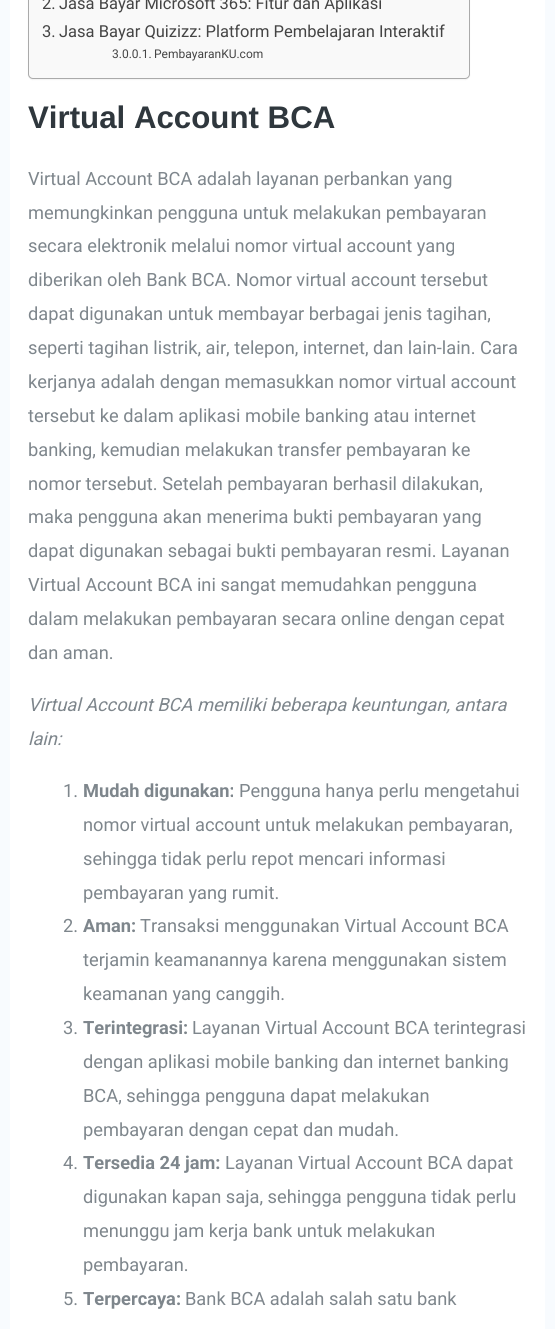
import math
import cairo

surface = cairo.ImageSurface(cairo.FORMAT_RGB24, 555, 1329)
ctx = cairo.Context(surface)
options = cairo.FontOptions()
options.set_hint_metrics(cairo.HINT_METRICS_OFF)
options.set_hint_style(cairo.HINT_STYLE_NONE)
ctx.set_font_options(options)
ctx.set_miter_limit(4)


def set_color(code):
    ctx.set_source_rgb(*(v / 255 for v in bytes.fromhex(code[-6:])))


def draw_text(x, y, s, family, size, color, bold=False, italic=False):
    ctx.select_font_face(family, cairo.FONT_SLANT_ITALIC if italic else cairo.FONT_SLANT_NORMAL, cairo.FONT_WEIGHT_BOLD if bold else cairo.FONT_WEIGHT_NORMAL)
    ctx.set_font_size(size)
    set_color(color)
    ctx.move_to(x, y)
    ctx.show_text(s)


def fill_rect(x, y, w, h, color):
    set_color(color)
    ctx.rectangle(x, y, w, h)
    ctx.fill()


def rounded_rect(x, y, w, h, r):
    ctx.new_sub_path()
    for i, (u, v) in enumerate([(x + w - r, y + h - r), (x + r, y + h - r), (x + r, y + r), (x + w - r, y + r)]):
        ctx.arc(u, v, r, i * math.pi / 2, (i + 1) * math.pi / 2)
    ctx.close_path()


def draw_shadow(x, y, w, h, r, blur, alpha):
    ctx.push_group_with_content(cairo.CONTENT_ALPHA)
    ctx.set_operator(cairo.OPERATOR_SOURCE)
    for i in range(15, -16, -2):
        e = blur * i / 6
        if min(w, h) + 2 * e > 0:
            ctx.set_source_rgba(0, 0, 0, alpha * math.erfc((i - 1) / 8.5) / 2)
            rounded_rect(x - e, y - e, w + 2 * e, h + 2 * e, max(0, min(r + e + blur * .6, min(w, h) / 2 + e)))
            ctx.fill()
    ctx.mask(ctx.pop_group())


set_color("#f8fbfe")
ctx.paint()
fill_rect(10, 0, 535, 1329, "#ffffff")
set_color("#000000")
draw_shadow(28, -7, 442, 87, 5, 0.5, 0.05)
set_color("#f9f9f9")
rounded_rect(28.5, -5.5, 441, 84, 4.5)
ctx.fill_preserve()
set_color("#aaaaaa")
ctx.set_line_width(1)
ctx.stroke()
draw_text(42, 9, "2.", "Roboto", 16.5, "#444444")
draw_text(59, 9, "Jasa Bayar Microsoft 365: Fitur dan Aplikasi", "Roboto", 16.5, "#444444")
draw_text(42, 37, "3.", "Roboto", 16.5, "#444444")
draw_text(59, 37, "Jasa Bayar Quizizz: Platform Pembelajaran Interaktif", "Roboto", 16.5, "#444444")
draw_text(112, 58, "3.0.0.1.", "Roboto", 12, "#444444")
draw_text(154, 58, "PembayaranKU.com", "Roboto", 12, "#444444")
draw_text(28, 128, "Virtual Account BCA", "Liberation Sans", 31.25, "#2f373d", bold=True)
draw_text(28, 185, "Virtual Account BCA adalah layanan perbankan yang", "Roboto", 18.25, "#7e868c")
draw_text(28, 219, "memungkinkan pengguna untuk melakukan pembayaran", "Roboto", 18.25, "#7e868c")
draw_text(28, 252, "secara elektronik melalui nomor virtual account yang", "Roboto", 18.25, "#7e868c")
draw_text(28, 286, "diberikan oleh Bank BCA. Nomor virtual account tersebut", "Roboto", 18.25, "#7e868c")
draw_text(28, 320, "dapat digunakan untuk membayar berbagai jenis tagihan,", "Roboto", 18.25, "#7e868c")
draw_text(28, 354, "seperti tagihan listrik, air, telepon, internet, dan lain-lain. Cara", "Roboto", 18.25, "#7e868c")
draw_text(28, 388, "kerjanya adalah dengan memasukkan nomor virtual account", "Roboto", 18.25, "#7e868c")
draw_text(28, 422, "tersebut ke dalam aplikasi mobile banking atau internet", "Roboto", 18.25, "#7e868c")
draw_text(28, 456, "banking, kemudian melakukan transfer pembayaran ke", "Roboto", 18.25, "#7e868c")
draw_text(28, 490, "nomor tersebut. Setelah pembayaran berhasil dilakukan,", "Roboto", 18.25, "#7e868c")
draw_text(28, 523, "maka pengguna akan menerima bukti pembayaran yang", "Roboto", 18.25, "#7e868c")
draw_text(28, 557, "dapat digunakan sebagai bukti pembayaran resmi. Layanan", "Roboto", 18.25, "#7e868c")
draw_text(28, 591, "Virtual Account BCA ini sangat memudahkan pengguna", "Roboto", 18.25, "#7e868c")
draw_text(28, 625, "dalam melakukan pembayaran secara online dengan cepat", "Roboto", 18.25, "#7e868c")
draw_text(28, 659, "dan aman.", "Roboto", 18.25, "#7e868c")
draw_text(28, 711, "Virtual Account BCA memiliki beberapa keuntungan, antara", "Roboto", 18.25, "#7e868c", italic=True)
draw_text(28, 745, "lain:", "Roboto", 18.25, "#7e868c", italic=True)
draw_text(63, 797, "1.", "Roboto", 18.25, "#7e868c")
draw_text(83, 797, "Mudah digunakan:", "Roboto", 18.25, "#7e868c", bold=True)
draw_text(239, 797, "Pengguna hanya perlu mengetahui", "Roboto", 18.25, "#7e868c")
draw_text(83, 831, "nomor virtual account untuk melakukan pembayaran,", "Roboto", 18.25, "#7e868c")
draw_text(83, 865, "sehingga tidak perlu repot mencari informasi", "Roboto", 18.25, "#7e868c")
draw_text(83, 899, "pembayaran yang rumit.", "Roboto", 18.25, "#7e868c")
draw_text(63, 932, "2.", "Roboto", 18.25, "#7e868c")
draw_text(83, 932, "Aman:", "Roboto", 18.25, "#7e868c", bold=True)
draw_text(140, 932, "Transaksi menggunakan Virtual Account BCA", "Roboto", 18.25, "#7e868c")
draw_text(83, 966, "terjamin keamanannya karena menggunakan sistem", "Roboto", 18.25, "#7e868c")
draw_text(83, 1000, "keamanan yang canggih.", "Roboto", 18.25, "#7e868c")
draw_text(63, 1034, "3.", "Roboto", 18.25, "#7e868c")
draw_text(83, 1034, "Terintegrasi:", "Roboto", 18.25, "#7e868c", bold=True)
draw_text(192, 1034, "Layanan Virtual Account BCA terintegrasi", "Roboto", 18.25, "#7e868c")
draw_text(83, 1068, "dengan aplikasi mobile banking dan internet banking", "Roboto", 18.25, "#7e868c")
draw_text(83, 1102, "BCA, sehingga pengguna dapat melakukan", "Roboto", 18.25, "#7e868c")
draw_text(83, 1136, "pembayaran dengan cepat dan mudah.", "Roboto", 18.25, "#7e868c")
draw_text(63, 1169, "4.", "Roboto", 18.25, "#7e868c")
draw_text(83, 1169, "Tersedia 24 jam:", "Roboto", 18.25, "#7e868c", bold=True)
draw_text(225, 1169, "Layanan Virtual Account BCA dapat", "Roboto", 18.25, "#7e868c")
draw_text(83, 1203, "digunakan kapan saja, sehingga pengguna tidak perlu", "Roboto", 18.25, "#7e868c")
draw_text(83, 1237, "menunggu jam kerja bank untuk melakukan", "Roboto", 18.25, "#7e868c")
draw_text(83, 1271, "pembayaran.", "Roboto", 18.25, "#7e868c")
draw_text(63, 1305, "5.", "Roboto", 18.25, "#7e868c")
draw_text(83, 1305, "Terpercaya:", "Roboto", 18.25, "#7e868c", bold=True)
draw_text(185, 1305, "Bank BCA adalah salah satu bank", "Roboto", 18.25, "#7e868c")
surface.write_to_png("output.png")
